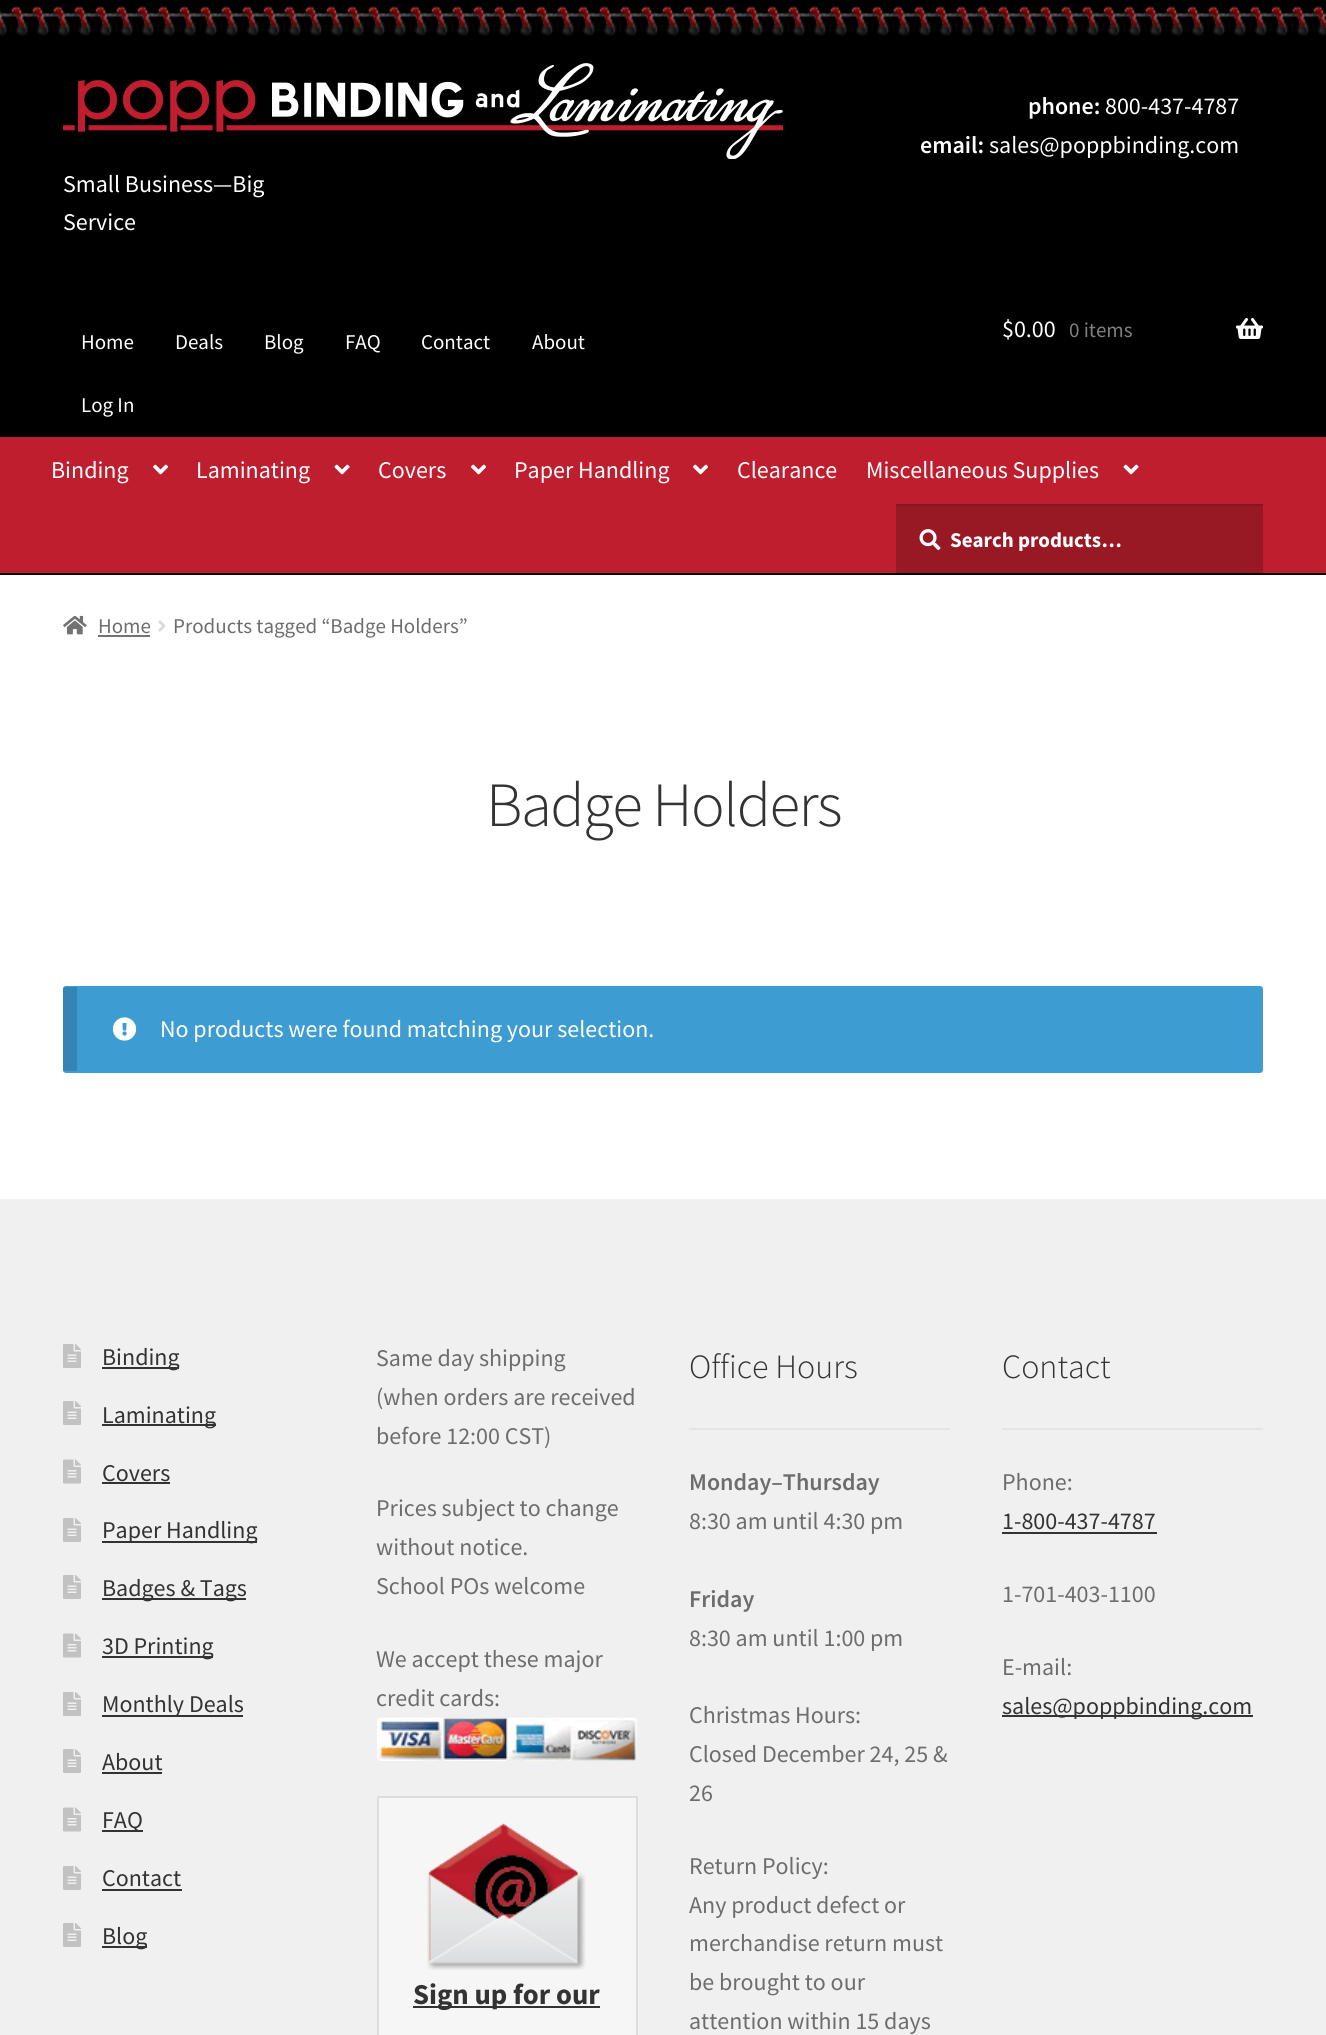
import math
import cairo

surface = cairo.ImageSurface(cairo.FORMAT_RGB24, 1326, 2035)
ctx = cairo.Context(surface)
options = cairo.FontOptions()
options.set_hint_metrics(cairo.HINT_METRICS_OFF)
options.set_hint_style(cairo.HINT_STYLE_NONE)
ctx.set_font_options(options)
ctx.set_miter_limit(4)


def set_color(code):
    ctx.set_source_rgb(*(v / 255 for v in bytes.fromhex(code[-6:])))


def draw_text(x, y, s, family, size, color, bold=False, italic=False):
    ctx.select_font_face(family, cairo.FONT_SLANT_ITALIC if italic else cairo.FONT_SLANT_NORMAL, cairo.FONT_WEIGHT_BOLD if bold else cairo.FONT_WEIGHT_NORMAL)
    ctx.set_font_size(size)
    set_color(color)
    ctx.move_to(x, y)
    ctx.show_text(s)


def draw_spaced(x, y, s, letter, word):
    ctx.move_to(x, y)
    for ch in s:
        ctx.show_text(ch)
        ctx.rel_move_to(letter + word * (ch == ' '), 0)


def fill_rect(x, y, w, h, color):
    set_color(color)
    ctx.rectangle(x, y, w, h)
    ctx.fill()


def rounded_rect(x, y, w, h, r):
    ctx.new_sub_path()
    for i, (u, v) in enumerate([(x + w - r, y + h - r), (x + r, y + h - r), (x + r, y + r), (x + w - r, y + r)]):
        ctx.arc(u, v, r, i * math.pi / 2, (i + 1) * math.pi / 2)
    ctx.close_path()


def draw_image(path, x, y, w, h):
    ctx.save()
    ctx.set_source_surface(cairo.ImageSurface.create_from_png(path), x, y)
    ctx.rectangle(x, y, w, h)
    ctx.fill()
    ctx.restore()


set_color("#ffffff")
ctx.paint()
fill_rect(0, 0, 1326, 575, "#000000")
draw_image("assets/img1.png", 0, 6, 1326, 30)
draw_text(1028, 114, "phone:", "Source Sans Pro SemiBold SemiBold", 24, "#ffffff")
draw_text(1105, 114, "800-437-4787", "Source Sans Pro", 24, "#ffffff")
draw_text(920, 153, "email:", "Source Sans Pro SemiBold SemiBold", 24, "#ffffff")
draw_text(989, 153, "sales@poppbinding.com", "Source Sans Pro", 24, "#ffffff")
draw_image("assets/img2.png", 63, 63, 720, 96)
draw_text(63, 192, "Small Business—Big", "Source Sans Pro", 24, "#ffffff")
draw_text(63, 230, "Service", "Source Sans Pro", 24, "#ffffff")
draw_text(1002, 337, "$0.00", "Source Sans Pro", 24, "#ffffff")
draw_text(1069, 337, "0 items", "Source Sans Pro", 21, "#808080")
draw_image("assets/img3.png", 1236, 318, 27, 21)
draw_text(81, 349, "Home", "Source Sans Pro", 21, "#ffffff")
draw_text(175, 349, "Deals", "Source Sans Pro", 21, "#ffffff")
draw_text(264, 349, "Blog", "Source Sans Pro", 21, "#ffffff")
draw_text(345, 349, "FAQ", "Source Sans Pro", 21, "#ffffff")
draw_text(421, 349, "Contact", "Source Sans Pro", 21, "#ffffff")
draw_text(532, 349, "About", "Source Sans Pro", 21, "#ffffff")
draw_text(81, 412, "Log In", "Source Sans Pro", 21, "#ffffff")
fill_rect(0, 437, 1326, 136, "#be1e2d")
draw_text(51, 478, "Binding", "Source Sans Pro", 24, "#ffffff")
draw_image("assets/img4.png", 153, 464, 15, 11)
draw_text(196, 478, "Laminating", "Source Sans Pro", 24, "#ffffff")
draw_image("assets/img5.png", 334, 464, 16, 11)
draw_text(378, 478, "Covers", "Source Sans Pro", 24, "#ffffff")
draw_image("assets/img4.png", 471, 464, 15, 11)
draw_text(514, 478, "Paper Handling", "Source Sans Pro", 24, "#ffffff")
draw_image("assets/img4.png", 693, 464, 15, 11)
draw_text(737, 478, "Clearance", "Source Sans Pro", 24, "#ffffff")
draw_text(866, 478, "Miscellaneous Supplies", "Source Sans Pro", 24, "#ffffff")
draw_image("assets/img5.png", 1123, 464, 16, 11)
fill_rect(896, 506, 367, 67, "#981824")
draw_image("assets/img6.png", 919, 529, 22, 22)
fill_rect(896, 504, 367, 2, "#851520")
draw_text(950, 547, "Search products…", "Source Sans Pro", 21, "#ffffff", bold=True)
draw_image("assets/img7.png", 63, 615, 24, 20)
draw_text(98, 633, "Home", "Source Sans Pro", 21, "#6d6d6d")
fill_rect(98, 635, 52, 2, "#727272")
draw_image("assets/img8.png", 158, 620, 8, 12)
draw_text(173, 633, "Products tagged “Badge Holders”", "Source Sans Pro", 21, "#6d6d6d")
ctx.select_font_face("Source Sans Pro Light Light")
ctx.set_font_size(63)
set_color("#333333")
draw_spaced(486, 826, "Badge Holders", -1.5, 0)
set_color("#3d9cd2")
rounded_rect(63, 986, 1200, 87, 3)
ctx.fill()
ctx.set_source_rgba(0, 0, 0, 0.15)
ctx.rectangle(63, 987, 14, 84)
ctx.fill()
draw_image("assets/img9.png", 112, 1017, 25, 24)
draw_text(160, 1037, "No products were found matching your selection.", "Source Sans Pro", 24, "#ffffff")
fill_rect(0, 1199, 1326, 836, "#f0f0f0")
draw_image("assets/img10.png", 63, 1344, 18, 24)
fill_rect(102, 1367, 77, 2, "#333333")
draw_text(102, 1365, "Binding", "Source Sans Pro", 24, "#333333")
draw_image("assets/img10.png", 63, 1401, 18, 24)
fill_rect(102, 1424, 114, 2, "#333333")
draw_text(102, 1423, "Laminating", "Source Sans Pro", 24, "#333333")
draw_image("assets/img11.png", 63, 1459, 18, 25)
draw_text(102, 1481, "Covers", "Source Sans Pro", 24, "#333333")
fill_rect(102, 1482, 68, 2, "#333333")
draw_image("assets/img10.png", 63, 1518, 18, 24)
fill_rect(102, 1541, 155, 2, "#333333")
draw_text(102, 1538, "Paper Handling", "Source Sans Pro", 24, "#333333")
draw_image("assets/img10.png", 63, 1575, 18, 24)
fill_rect(102, 1598, 144, 2, "#333333")
draw_text(102, 1596, "Badges & Tags", "Source Sans Pro", 24, "#333333")
draw_image("assets/img11.png", 63, 1633, 18, 25)
fill_rect(102, 1656, 111, 2, "#333333")
draw_text(102, 1654, "3D Printing", "Source Sans Pro", 24, "#333333")
draw_image("assets/img10.png", 63, 1692, 18, 24)
fill_rect(102, 1715, 141, 2, "#333333")
draw_text(102, 1712, "Monthly Deals", "Source Sans Pro", 24, "#333333")
draw_image("assets/img10.png", 63, 1749, 18, 24)
draw_text(102, 1770, "About", "Source Sans Pro", 24, "#333333")
fill_rect(102, 1772, 60, 2, "#333333")
draw_image("assets/img11.png", 63, 1807, 18, 25)
fill_rect(102, 1830, 41, 2, "#333333")
draw_text(102, 1828, "FAQ", "Source Sans Pro", 24, "#333333")
draw_image("assets/img10.png", 63, 1866, 18, 24)
draw_text(102, 1886, "Contact", "Source Sans Pro", 24, "#333333")
fill_rect(102, 1889, 80, 2, "#333333")
draw_image("assets/img10.png", 63, 1923, 18, 24)
fill_rect(102, 1946, 45, 2, "#333333")
draw_text(102, 1944, "Blog", "Source Sans Pro", 24, "#333333")
draw_text(376, 1366, "Same day shipping", "Source Sans Pro", 24, "#6d6d6d")
draw_text(376, 1405, "(when orders are received", "Source Sans Pro", 24, "#6d6d6d")
draw_text(376, 1444, "before 12:00 CST)", "Source Sans Pro", 24, "#6d6d6d")
draw_text(376, 1516, "Prices subject to change", "Source Sans Pro", 24, "#6d6d6d")
draw_text(376, 1555, "without notice.", "Source Sans Pro", 24, "#6d6d6d")
draw_text(376, 1594, "School POs welcome", "Source Sans Pro", 24, "#6d6d6d")
draw_text(376, 1667, "We accept these major", "Source Sans Pro", 24, "#6d6d6d")
draw_text(376, 1706, "credit cards:", "Source Sans Pro", 24, "#6d6d6d")
draw_image("assets/img12.png", 377, 1717, 260, 44)
set_color("#f6f6f6")
ctx.rectangle(378, 1797, 259, 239)
ctx.fill_preserve()
set_color("#dddddd")
ctx.stroke()
draw_image("assets/img13.png", 427, 1823, 159, 147)
fill_rect(413, 2006, 187, 2, "#333333")
draw_text(413, 2004, "Sign up for our", "Source Sans Pro", 28.75, "#333333", bold=True)
fill_rect(689, 1428, 261, 2, "#e4e4e4")
draw_text(689, 1378, "Office Hours", "Source Sans Pro Light Light", 34, "#333333")
draw_text(689, 1490, "Monday–Thursday", "Source Sans Pro SemiBold SemiBold", 24, "#6d6d6d")
draw_text(689, 1529, "8:30 am until 4:30 pm", "Source Sans Pro", 24, "#6d6d6d")
draw_text(689, 1607, "Friday", "Source Sans Pro SemiBold SemiBold", 24, "#6d6d6d")
draw_text(689, 1646, "8:30 am until 1:00 pm", "Source Sans Pro", 24, "#6d6d6d")
draw_text(689, 1723, "Christmas Hours:", "Source Sans Pro", 24, "#6d6d6d")
draw_text(689, 1762, "Closed December 24, 25 &", "Source Sans Pro", 24, "#6d6d6d")
draw_text(689, 1801, "26", "Source Sans Pro", 24, "#6d6d6d")
draw_text(689, 1874, "Return Policy:", "Source Sans Pro", 24, "#6d6d6d")
draw_text(689, 1913, "Any product defect or", "Source Sans Pro", 24, "#6d6d6d")
draw_text(689, 1951, "merchandise return must", "Source Sans Pro", 24, "#6d6d6d")
draw_text(689, 1990, "be brought to our", "Source Sans Pro", 24, "#6d6d6d")
draw_text(689, 2029, "attention within 15 days", "Source Sans Pro", 24, "#6d6d6d")
fill_rect(1002, 1428, 261, 2, "#e4e4e4")
draw_text(1002, 1378, "Contact", "Source Sans Pro Light Light", 34, "#333333")
draw_text(1002, 1490, "Phone:", "Source Sans Pro", 24, "#6d6d6d")
draw_text(1002, 1529, "1-800-437-4787", "Source Sans Pro", 24, "#333333")
fill_rect(1002, 1532, 155, 2, "#333333")
draw_text(1002, 1602, "1-701-403-1100", "Source Sans Pro", 24, "#6d6d6d")
draw_text(1002, 1675, "E-mail:", "Source Sans Pro", 24, "#6d6d6d")
fill_rect(1002, 1715, 251, 2, "#333333")
draw_text(1002, 1714, "sales@poppbinding.com", "Source Sans Pro", 24, "#333333")
surface.write_to_png("output.png")
